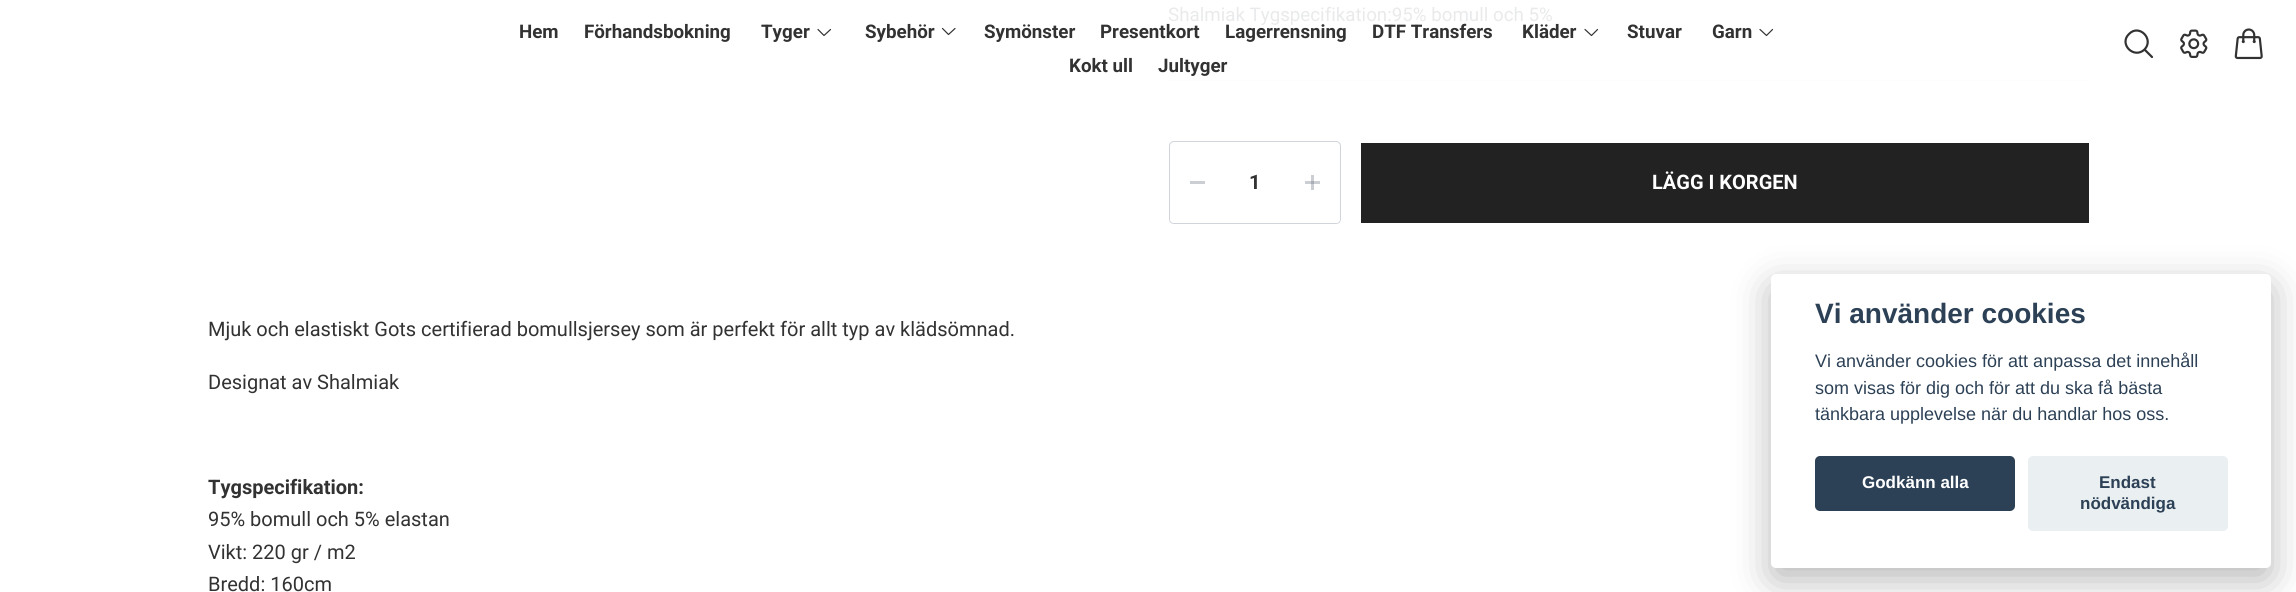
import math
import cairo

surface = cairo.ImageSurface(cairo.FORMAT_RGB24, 2296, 592)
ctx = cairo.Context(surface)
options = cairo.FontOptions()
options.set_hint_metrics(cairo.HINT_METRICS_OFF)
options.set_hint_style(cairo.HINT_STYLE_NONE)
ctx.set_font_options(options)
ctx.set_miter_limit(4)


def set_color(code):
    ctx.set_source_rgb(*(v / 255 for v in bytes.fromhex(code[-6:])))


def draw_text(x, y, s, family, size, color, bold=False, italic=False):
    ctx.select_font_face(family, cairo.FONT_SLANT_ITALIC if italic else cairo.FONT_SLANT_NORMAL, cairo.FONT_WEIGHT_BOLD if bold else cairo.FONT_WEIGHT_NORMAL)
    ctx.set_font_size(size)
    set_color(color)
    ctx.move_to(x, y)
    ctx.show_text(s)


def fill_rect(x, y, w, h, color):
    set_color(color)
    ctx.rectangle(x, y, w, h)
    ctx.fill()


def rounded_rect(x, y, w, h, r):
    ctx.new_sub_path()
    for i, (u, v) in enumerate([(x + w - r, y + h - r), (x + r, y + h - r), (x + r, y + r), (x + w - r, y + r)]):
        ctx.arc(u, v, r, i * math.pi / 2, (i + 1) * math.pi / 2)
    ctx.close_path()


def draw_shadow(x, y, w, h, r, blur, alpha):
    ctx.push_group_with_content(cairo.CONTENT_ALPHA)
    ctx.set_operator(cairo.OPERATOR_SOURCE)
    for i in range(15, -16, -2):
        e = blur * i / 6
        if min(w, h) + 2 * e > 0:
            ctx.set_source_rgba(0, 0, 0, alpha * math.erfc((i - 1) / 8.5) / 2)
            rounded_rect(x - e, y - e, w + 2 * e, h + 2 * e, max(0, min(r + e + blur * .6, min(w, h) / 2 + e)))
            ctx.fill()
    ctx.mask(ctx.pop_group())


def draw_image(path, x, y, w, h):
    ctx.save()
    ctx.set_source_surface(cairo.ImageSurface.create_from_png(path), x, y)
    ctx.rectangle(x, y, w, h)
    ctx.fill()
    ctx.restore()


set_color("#ffffff")
ctx.paint()
fill_rect(1169, 80, 920, 1, "#fcfdfd")
draw_text(1168, 21, "Shalmiak Tygspecifikation:95% bomull och 5%", "Roboto", 18.75, "#e9eaeb")
rounded_rect(1169.5, 141.5, 171, 82, 4.5)
set_color("#d1d5db")
ctx.set_line_width(1)
ctx.stroke()
set_color("#ffffff")
ctx.new_path()
ctx.move_to(1174, 143)
ctx.line_to(1225, 143)
ctx.line_to(1225, 223)
ctx.line_to(1174, 223)
ctx.curve_to(1172, 223, 1170, 221, 1170, 219)
ctx.line_to(1170, 147)
ctx.curve_to(1170, 145, 1172, 143, 1174, 143)
ctx.close_path()
ctx.fill()
fill_rect(1190, 181, 15, 3, "#cbced3")
draw_text(1249, 189, "1", "Roboto", 20, "#323232", bold=True)
set_color("#ffffff")
ctx.new_path()
ctx.move_to(1285, 143)
ctx.line_to(1336, 143)
ctx.curve_to(1338, 143, 1340, 145, 1340, 147)
ctx.line_to(1340, 219)
ctx.curve_to(1340, 221, 1338, 223, 1336, 223)
ctx.line_to(1285, 223)
ctx.close_path()
ctx.fill()
fill_rect(1305, 181, 15, 3, "#cbced3")
fill_rect(1311, 175, 3, 15, "#cbced3")
fill_rect(1311, 181, 3, 3, "#a9aeb6")
fill_rect(1361, 143, 728, 80, "#222222")
draw_text(1652, 189, "LÄGG I KORGEN", "Roboto", 20, "#ffffff", bold=True)
draw_text(208, 336, "Mjuk och elastiskt Gots certifierad bomullsjersey som är perfekt för allt typ av klädsömnad.", "Roboto", 20, "#323232")
draw_text(208, 389, "Designat av Shalmiak", "Roboto", 20, "#323232")
draw_text(208, 494, "Tygspecifikation:", "Roboto", 20, "#323232", bold=True)
draw_text(208, 526, "95% bomull och 5% elastan", "Roboto", 20, "#323232")
draw_text(208, 559, "Vikt: 220 gr / m2", "Roboto", 20, "#323232")
draw_text(208, 591, "Bredd: 160cm", "Roboto", 20, "#323232")
draw_text(519, 38, "Hem", "Roboto", 18.75, "#323232", bold=True)
draw_text(584, 38, "Förhandsbokning", "Roboto", 18.75, "#323232", bold=True)
draw_text(761, 38, "Tyger", "Roboto", 18.75, "#323232", bold=True)
ctx.new_path()
ctx.move_to(830.5, 29.5)
ctx.line_to(824, 35.5)
ctx.line_to(818, 29.5)
ctx.set_line_width(1.2)
ctx.set_line_cap(cairo.LINE_CAP_ROUND)
ctx.set_line_join(cairo.LINE_JOIN_ROUND)
ctx.stroke()
draw_text(865, 38, "Sybehör", "Roboto", 18.75, "#323232", bold=True)
ctx.new_path()
ctx.move_to(955, 28.5)
ctx.line_to(948.5, 34.5)
ctx.line_to(942.5, 28.5)
ctx.stroke()
draw_text(984, 38, "Symönster", "Roboto", 18.75, "#323232", bold=True)
draw_text(1100, 38, "Presentkort", "Roboto", 18.75, "#323232", bold=True)
draw_text(1225, 38, "Lagerrensning", "Roboto", 18.75, "#323232", bold=True)
draw_text(1372, 38, "DTF Transfers", "Roboto", 18.75, "#323232", bold=True)
draw_text(1522, 38, "Kläder", "Roboto", 18.75, "#323232", bold=True)
ctx.new_path()
ctx.move_to(1597.5, 29.5)
ctx.line_to(1591.5, 35.5)
ctx.line_to(1585, 29.5)
ctx.stroke()
draw_text(1627, 38, "Stuvar", "Roboto", 18.75, "#323232", bold=True)
draw_text(1712, 38, "Garn", "Roboto", 18.75, "#323232", bold=True)
ctx.new_path()
ctx.move_to(1772.5, 29.5)
ctx.line_to(1766.5, 35.5)
ctx.line_to(1760, 29.5)
ctx.stroke()
draw_text(1069, 72, "Kokt ull", "Roboto", 18.75, "#323232", bold=True)
draw_text(1158, 72, "Jultyger", "Roboto", 18.75, "#323232", bold=True)
ctx.new_path()
ctx.move_to(2152, 57)
ctx.line_to(2144.5, 49.5)
ctx.move_to(2144.5, 49.5)
ctx.curve_to(2154.5, 39, 2139, 23.5, 2129, 34)
ctx.curve_to(2118.5, 44, 2134, 59.5, 2144.5, 49.5)
ctx.close_path()
ctx.set_line_width(2.2)
ctx.stroke()
draw_image("assets/img1.png", 2180, 29, 28, 29)
draw_image("assets/img2.png", 2234, 28, 29, 32)
set_color("#020203")
draw_shadow(1771, 286, 500, 294, 5, 19, 0.28)
set_color("#ffffff")
rounded_rect(1771, 274, 500, 294, 5)
ctx.fill()
draw_text(1815, 323, "Vi använder cookies", "Liberation Sans", 28, "#2d4156", bold=True)
draw_text(1815, 367, "Vi använder cookies för att anpassa det innehåll", "Liberation Sans", 18, "#2d4156")
draw_text(1815, 394, "som visas för dig och för att du ska få bästa", "Liberation Sans", 18, "#2d4156")
draw_text(1815, 420, "tänkbara upplevelse när du handlar hos oss.", "Liberation Sans", 18, "#2d4156")
rounded_rect(1815, 456, 200, 55, 5)
ctx.fill()
draw_text(1862, 488, "Godkänn alla", "Liberation Sans", 17, "#ffffff", bold=True)
set_color("#eaeff2")
rounded_rect(2028, 456, 200, 75, 5)
ctx.fill()
draw_text(2099, 488, "Endast", "Liberation Sans", 17, "#2d4156", bold=True)
draw_text(2080, 509, "nödvändiga", "Liberation Sans", 17, "#2d4156", bold=True)
surface.write_to_png("output.png")
